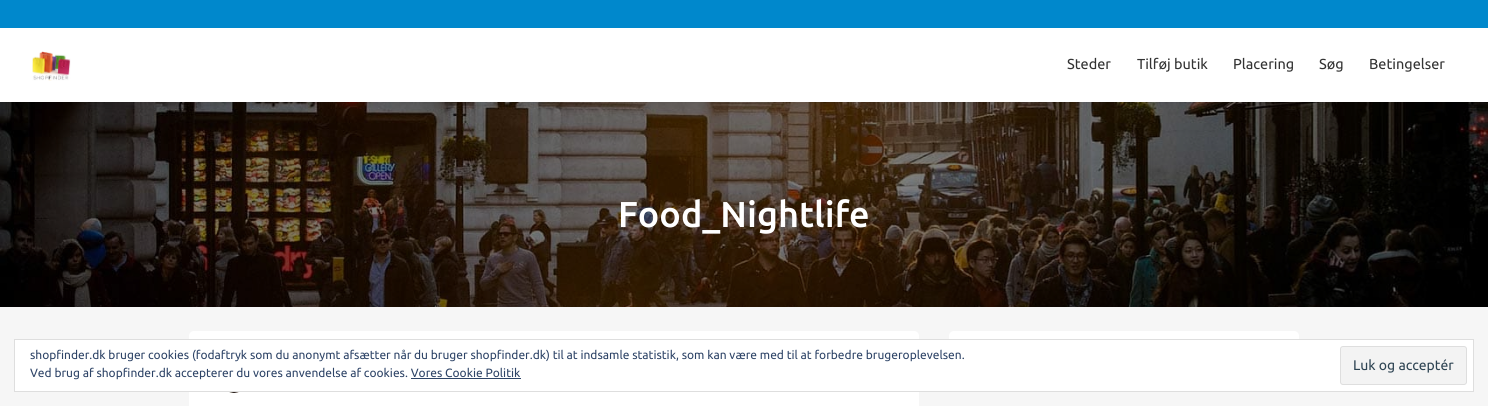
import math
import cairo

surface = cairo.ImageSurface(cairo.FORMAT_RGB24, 1488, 406)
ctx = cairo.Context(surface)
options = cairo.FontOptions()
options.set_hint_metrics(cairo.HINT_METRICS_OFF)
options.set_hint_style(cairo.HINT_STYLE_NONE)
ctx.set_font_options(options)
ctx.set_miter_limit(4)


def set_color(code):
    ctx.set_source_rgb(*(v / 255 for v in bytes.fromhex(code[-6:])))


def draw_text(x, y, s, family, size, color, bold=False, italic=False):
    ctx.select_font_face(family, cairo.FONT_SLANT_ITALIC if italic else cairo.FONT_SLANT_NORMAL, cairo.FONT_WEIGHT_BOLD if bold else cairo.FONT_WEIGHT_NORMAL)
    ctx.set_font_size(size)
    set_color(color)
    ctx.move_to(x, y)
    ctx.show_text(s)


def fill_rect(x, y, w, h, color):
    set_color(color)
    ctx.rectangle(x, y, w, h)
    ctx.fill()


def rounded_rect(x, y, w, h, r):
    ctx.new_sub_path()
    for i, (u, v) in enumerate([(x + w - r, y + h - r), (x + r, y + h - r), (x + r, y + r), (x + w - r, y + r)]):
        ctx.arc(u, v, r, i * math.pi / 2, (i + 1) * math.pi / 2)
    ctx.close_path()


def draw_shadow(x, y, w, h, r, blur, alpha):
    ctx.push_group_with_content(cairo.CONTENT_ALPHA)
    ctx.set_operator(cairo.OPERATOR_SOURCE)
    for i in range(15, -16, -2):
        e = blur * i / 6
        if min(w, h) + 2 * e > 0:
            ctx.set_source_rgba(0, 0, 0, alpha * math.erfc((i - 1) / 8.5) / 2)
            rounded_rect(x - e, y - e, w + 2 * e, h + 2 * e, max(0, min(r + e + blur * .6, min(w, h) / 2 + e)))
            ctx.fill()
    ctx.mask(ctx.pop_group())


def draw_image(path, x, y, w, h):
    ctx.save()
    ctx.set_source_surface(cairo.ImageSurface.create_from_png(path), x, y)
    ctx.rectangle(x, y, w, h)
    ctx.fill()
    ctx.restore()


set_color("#f6f6f6")
ctx.paint()
draw_image("assets/img2.png", 0, 102, 1488, 205)
set_color("#000000")
draw_shadow(0, 28, 1488, 74, 0, 4, 0.12)
fill_rect(0, 0, 1488, 28, "#0088cc")
fill_rect(0, 28, 1488, 74, "#ffffff")
draw_image("assets/img1.png", 32, 51, 39, 30)
draw_text(1067, 69, "Steder", "Ubuntu", 14.5, "#333333")
draw_text(1137, 69, "Tilføj butik", "Ubuntu", 14.5, "#333333")
draw_text(1233, 69, "Placering", "Ubuntu", 14.5, "#333333")
draw_text(1319, 69, "Søg", "Ubuntu", 14.5, "#333333")
draw_text(1369, 69, "Betingelser", "Ubuntu", 14.5, "#333333")
draw_text(618, 227, "Food_Nightlife", "Ubuntu Medium", 36, "#ffffff")
rounded_rect(189, 331, 730, 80, 5)
ctx.fill()
draw_image("assets/img3.png", 229, 392, 10, 1)
rounded_rect(949, 331, 350, 40, 5)
ctx.fill()
ctx.rectangle(14.5, 339.5, 1459, 52)
ctx.fill_preserve()
set_color("#dedede")
ctx.set_line_width(1)
ctx.stroke()
draw_text(30, 359, "shopfinder.dk bruger cookies (fodaftryk som du anonymt afsætter når du bruger shopfinder.dk) til at indsamle statistik, som kan være med til at forbedre brugeroplevelsen.", "Ubuntu", 12, "#2e4467")
draw_text(30, 377, "Ved brug af shopfinder.dk accepterer du vores anvendelse af cookies. Vores Cookie Politik", "Ubuntu", 12, "#2e4467")
set_color("#f3f3f3")
rounded_rect(1340.5, 346.5, 126, 38, 2.5)
ctx.fill_preserve()
set_color("#dedede")
ctx.stroke()
draw_text(1353, 370, "Luk og acceptér", "Ubuntu", 14, "#2e4453")
fill_rect(411, 378, 110, 1, "#2e4467")
surface.write_to_png("output.png")
